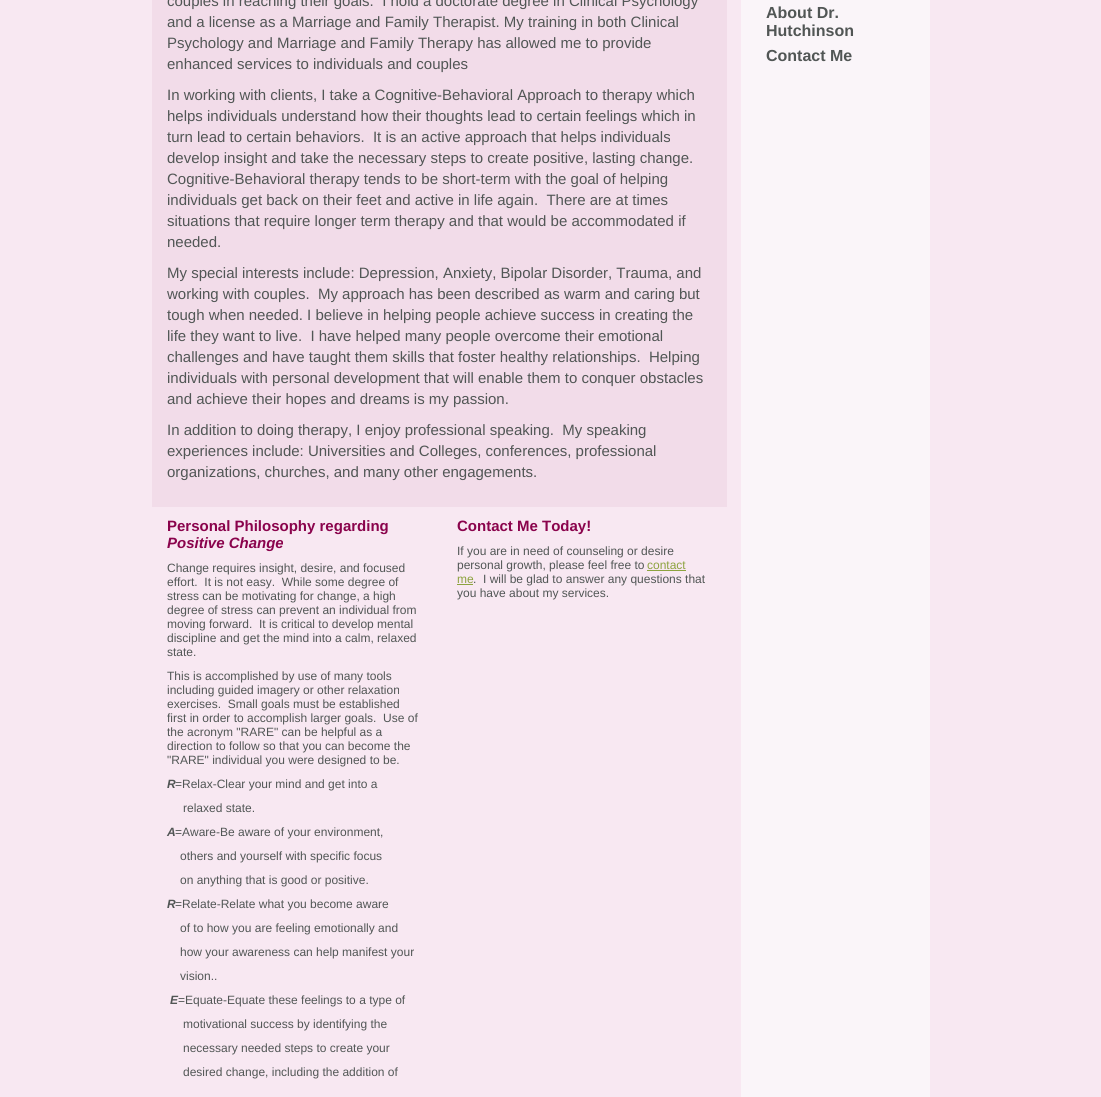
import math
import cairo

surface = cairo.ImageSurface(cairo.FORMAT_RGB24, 1101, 1097)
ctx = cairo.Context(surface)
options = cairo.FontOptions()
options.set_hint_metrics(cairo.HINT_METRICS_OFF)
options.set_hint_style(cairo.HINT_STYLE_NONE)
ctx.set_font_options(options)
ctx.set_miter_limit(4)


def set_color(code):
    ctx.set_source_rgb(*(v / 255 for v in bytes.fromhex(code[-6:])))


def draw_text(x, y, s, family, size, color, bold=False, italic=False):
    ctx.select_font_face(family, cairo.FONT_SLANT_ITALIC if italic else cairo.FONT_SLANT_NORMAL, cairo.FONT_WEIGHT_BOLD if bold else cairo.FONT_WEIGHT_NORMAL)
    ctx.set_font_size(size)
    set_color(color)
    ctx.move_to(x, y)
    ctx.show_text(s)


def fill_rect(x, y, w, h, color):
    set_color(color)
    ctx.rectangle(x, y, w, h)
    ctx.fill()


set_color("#f8e8f2")
ctx.paint()
fill_rect(741, 0, 189, 1097, "#faf5f9")
fill_rect(152, 0, 575, 507, "#f2dce9")
draw_text(167, 6, "couples in reaching their goals.  I hold a doctorate degree in Clinical Psychology", "Liberation Sans", 15, "#515655")
draw_text(167, 27, "and a license as a Marriage and Family Therapist. My training in both Clinical", "Liberation Sans", 15, "#515655")
draw_text(167, 48, "Psychology and Marriage and Family Therapy has allowed me to provide", "Liberation Sans", 15, "#515655")
draw_text(167, 69, "enhanced services to individuals and couples", "Liberation Sans", 15, "#515655")
draw_text(167, 100, "In working with clients, I take a Cognitive-Behavioral Approach to therapy which", "Liberation Sans", 15, "#515655")
draw_text(167, 121, "helps individuals understand how their thoughts lead to certain feelings which in", "Liberation Sans", 15, "#515655")
draw_text(167, 142, "turn lead to certain behaviors.  It is an active approach that helps individuals", "Liberation Sans", 15, "#515655")
draw_text(167, 163, "develop insight and take the necessary steps to create positive, lasting change.", "Liberation Sans", 15, "#515655")
draw_text(167, 184, "Cognitive-Behavioral therapy tends to be short-term with the goal of helping", "Liberation Sans", 15, "#515655")
draw_text(167, 205, "individuals get back on their feet and active in life again.  There are at times", "Liberation Sans", 15, "#515655")
draw_text(167, 226, "situations that require longer term therapy and that would be accommodated if", "Liberation Sans", 15, "#515655")
draw_text(167, 247, "needed.", "Liberation Sans", 15, "#515655")
draw_text(167, 278, "My special interests include: Depression, Anxiety, Bipolar Disorder, Trauma, and", "Liberation Sans", 15, "#515655")
draw_text(167, 299, "working with couples.  My approach has been described as warm and caring but", "Liberation Sans", 15, "#515655")
draw_text(167, 320, "tough when needed. I believe in helping people achieve success in creating the", "Liberation Sans", 15, "#515655")
draw_text(167, 341, "life they want to live.  I have helped many people overcome their emotional", "Liberation Sans", 15, "#515655")
draw_text(167, 362, "challenges and have taught them skills that foster healthy relationships.  Helping", "Liberation Sans", 15, "#515655")
draw_text(167, 383, "individuals with personal development that will enable them to conquer obstacles", "Liberation Sans", 15, "#515655")
draw_text(167, 404, "and achieve their hopes and dreams is my passion.", "Liberation Sans", 15, "#515655")
draw_text(167, 435, "In addition to doing therapy, I enjoy professional speaking.  My speaking", "Liberation Sans", 15, "#515655")
draw_text(167, 456, "experiences include: Universities and Colleges, conferences, professional", "Liberation Sans", 15, "#515655")
draw_text(167, 477, "organizations, churches, and many other engagements.", "Liberation Sans", 15, "#515655")
draw_text(167, 531, "Personal Philosophy regarding", "Liberation Sans", 15, "#8a034c", bold=True)
draw_text(167, 548, "Positive Change", "Liberation Sans", 15, "#8a034c", bold=True, italic=True)
draw_text(167, 572, "Change requires insight, desire, and focused", "Liberation Sans", 12, "#515655")
draw_text(167, 586, "effort.  It is not easy.  While some degree of", "Liberation Sans", 12, "#515655")
draw_text(167, 600, "stress can be motivating for change, a high", "Liberation Sans", 12, "#515655")
draw_text(167, 614, "degree of stress can prevent an individual from", "Liberation Sans", 12, "#515655")
draw_text(167, 628, "moving forward.  It is critical to develop mental", "Liberation Sans", 12, "#515655")
draw_text(167, 642, "discipline and get the mind into a calm, relaxed", "Liberation Sans", 12, "#515655")
draw_text(167, 656, "state.", "Liberation Sans", 12, "#515655")
draw_text(167, 680, "This is accomplished by use of many tools", "Liberation Sans", 12, "#515655")
draw_text(167, 694, "including guided imagery or other relaxation", "Liberation Sans", 12, "#515655")
draw_text(167, 708, "exercises.  Small goals must be established", "Liberation Sans", 12, "#515655")
draw_text(167, 722, "first in order to accomplish larger goals.  Use of", "Liberation Sans", 12, "#515655")
draw_text(167, 736, "the acronym \"RARE\" can be helpful as a", "Liberation Sans", 12, "#515655")
draw_text(167, 750, "direction to follow so that you can become the", "Liberation Sans", 12, "#515655")
draw_text(167, 764, "\"RARE\" individual you were designed to be.", "Liberation Sans", 12, "#515655")
draw_text(167, 788, "R", "Liberation Sans", 12, "#515655", bold=True, italic=True)
draw_text(175, 788, "=Relax-Clear your mind and get into a", "Liberation Sans", 12, "#515655")
draw_text(183, 812, "relaxed state.", "Liberation Sans", 12, "#515655")
draw_text(167, 836, "A", "Liberation Sans", 12, "#515655", bold=True, italic=True)
draw_text(175, 836, "=Aware-Be aware of your environment,", "Liberation Sans", 12, "#515655")
draw_text(180, 860, "others and yourself with specific focus", "Liberation Sans", 12, "#515655")
draw_text(180, 884, "on anything that is good or positive.", "Liberation Sans", 12, "#515655")
draw_text(167, 908, "R", "Liberation Sans", 12, "#515655", bold=True, italic=True)
draw_text(175, 908, "=Relate-Relate what you become aware", "Liberation Sans", 12, "#515655")
draw_text(180, 932, "of to how you are feeling emotionally and", "Liberation Sans", 12, "#515655")
draw_text(180, 956, "how your awareness can help manifest your", "Liberation Sans", 12, "#515655")
draw_text(180, 980, "vision..", "Liberation Sans", 12, "#515655")
draw_text(170, 1004, "E", "Liberation Sans", 12, "#515655", bold=True, italic=True)
draw_text(178, 1004, "=Equate-Equate these feelings to a type of", "Liberation Sans", 12, "#515655")
draw_text(183, 1028, "motivational success by identifying the", "Liberation Sans", 12, "#515655")
draw_text(183, 1052, "necessary needed steps to create your", "Liberation Sans", 12, "#515655")
draw_text(183, 1076, "desired change, including the addition of", "Liberation Sans", 12, "#515655")
draw_text(457, 531, "Contact Me Today!", "Liberation Sans", 15, "#8a034c", bold=True)
draw_text(457, 555, "If you are in need of counseling or desire", "Liberation Sans", 12, "#515655")
draw_text(457, 569, "personal growth, please feel free to", "Liberation Sans", 12, "#515655")
draw_text(647, 569, "contact", "Liberation Sans", 12, "#8da33f")
fill_rect(647, 570, 39, 1, "#8da33f")
draw_text(457, 583, "me", "Liberation Sans", 12, "#8da33f")
fill_rect(457, 584, 16, 1, "#8da33f")
draw_text(473, 583, ".  I will be glad to answer any questions that", "Liberation Sans", 12, "#515655")
draw_text(457, 597, "you have about my services.", "Liberation Sans", 12, "#515655")
draw_text(766, 18, "About Dr.", "Liberation Sans", 16, "#515655", bold=True)
draw_text(766, 36, "Hutchinson", "Liberation Sans", 16, "#515655", bold=True)
draw_text(766, 61, "Contact Me", "Liberation Sans", 16, "#515655", bold=True)
surface.write_to_png("output.png")
